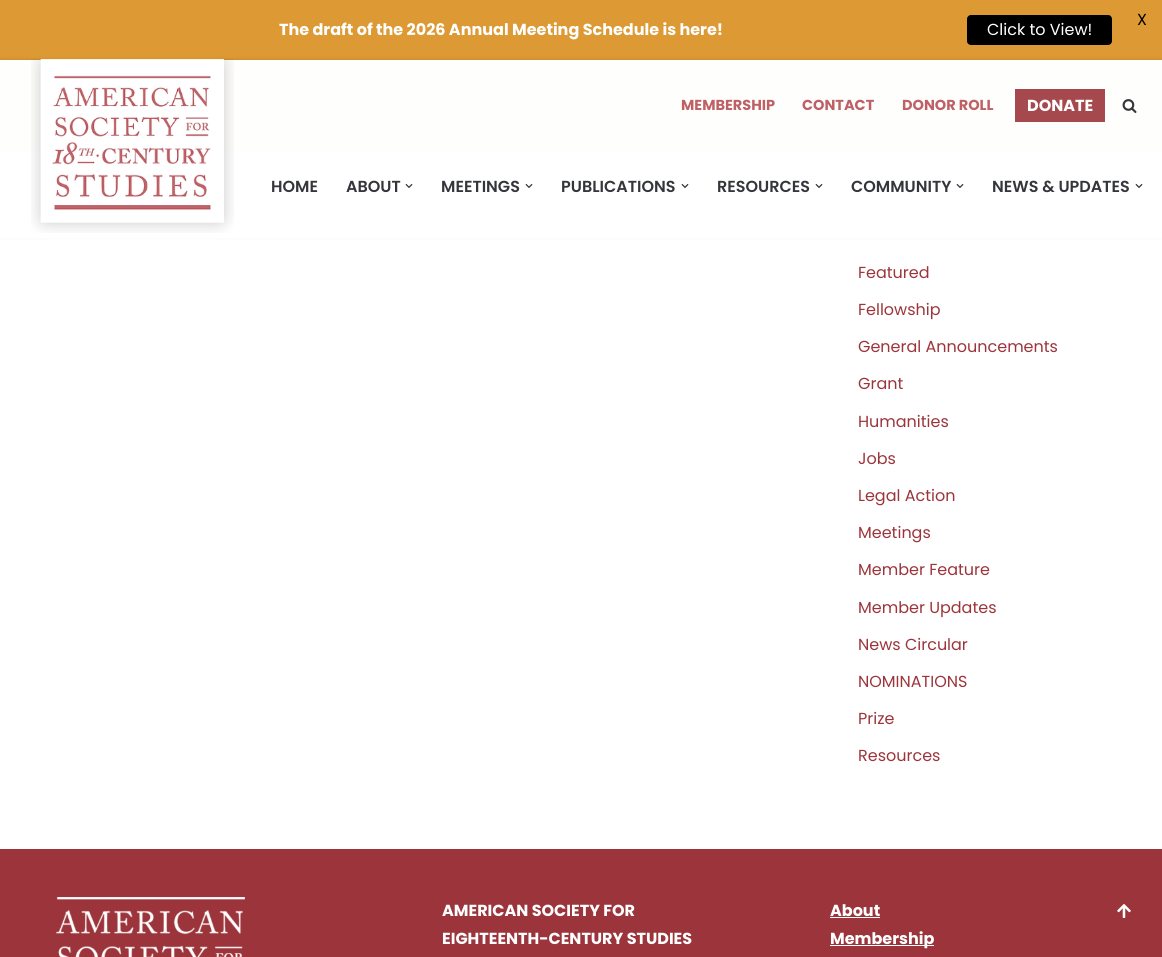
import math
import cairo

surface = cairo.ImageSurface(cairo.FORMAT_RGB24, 1162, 957)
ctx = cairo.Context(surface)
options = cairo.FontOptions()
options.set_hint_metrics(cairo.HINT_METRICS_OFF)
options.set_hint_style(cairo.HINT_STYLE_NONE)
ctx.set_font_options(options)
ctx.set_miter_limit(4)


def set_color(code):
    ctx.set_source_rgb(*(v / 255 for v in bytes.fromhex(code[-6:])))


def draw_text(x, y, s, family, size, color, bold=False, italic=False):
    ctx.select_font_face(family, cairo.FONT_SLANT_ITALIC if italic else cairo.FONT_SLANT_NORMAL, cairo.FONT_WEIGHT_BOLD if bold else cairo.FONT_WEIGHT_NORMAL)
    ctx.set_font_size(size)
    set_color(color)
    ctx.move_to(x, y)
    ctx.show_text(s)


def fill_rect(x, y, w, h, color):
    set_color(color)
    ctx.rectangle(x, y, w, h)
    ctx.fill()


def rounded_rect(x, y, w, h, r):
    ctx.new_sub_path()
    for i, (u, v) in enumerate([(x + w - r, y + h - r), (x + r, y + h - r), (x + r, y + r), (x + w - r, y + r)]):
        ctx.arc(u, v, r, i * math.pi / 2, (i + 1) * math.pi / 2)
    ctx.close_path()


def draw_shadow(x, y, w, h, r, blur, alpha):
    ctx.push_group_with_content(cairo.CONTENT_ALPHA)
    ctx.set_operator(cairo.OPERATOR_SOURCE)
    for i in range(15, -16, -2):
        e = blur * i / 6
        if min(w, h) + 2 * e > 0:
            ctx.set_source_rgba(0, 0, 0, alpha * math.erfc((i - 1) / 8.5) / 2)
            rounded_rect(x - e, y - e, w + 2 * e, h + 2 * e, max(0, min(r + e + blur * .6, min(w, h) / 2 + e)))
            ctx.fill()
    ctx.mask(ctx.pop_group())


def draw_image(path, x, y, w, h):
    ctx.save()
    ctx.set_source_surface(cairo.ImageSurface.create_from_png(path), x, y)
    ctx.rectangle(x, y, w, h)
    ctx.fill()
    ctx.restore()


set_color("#ffffff")
ctx.paint()
fill_rect(0, 0, 1162, 60, "#dd9933")
draw_text(1137, 25, "X", "Poppins", 16, "#000000")
draw_text(279, 35, "The draft of the 2026 Annual Meeting Schedule is here!", "Poppins", 16, "#ffffff", bold=True)
set_color("#000000")
rounded_rect(967, 15, 145, 30, 4)
ctx.fill()
draw_text(987, 35, "Click to View!", "Poppins", 16, "#ffffff")
set_color("#000000")
draw_shadow(0, 59, 1162, 178, 0, 1.5, 0.09)
fill_rect(0, 60, 1162, 91, "#fefefd")
fill_rect(0, 151, 1162, 87, "#ffffff")
draw_image("assets/img1.png", 31, 59, 203, 174)
draw_text(681, 110, "MEMBERSHIP", "Poppins", 14.5, "#bf6066", bold=True)
draw_text(802, 110, "CONTACT", "Poppins", 14.5, "#bf6066", bold=True)
draw_text(902, 110, "DONOR ROLL", "Poppins", 14.5, "#bf6066", bold=True)
fill_rect(1015, 89, 90, 33, "#a6494f")
draw_text(1027, 111, "DONATE", "Poppins", 16, "#ffffff", bold=True)
draw_image("assets/img2.png", 1122, 99, 15, 14)
draw_text(271, 192, "HOME", "Poppins SemiBold", 16, "#35363b")
draw_text(346, 192, "ABOUT", "Poppins SemiBold", 16, "#35363b")
draw_image("assets/img3.png", 405, 184, 8, 4)
draw_text(441, 192, "MEETINGS", "Poppins SemiBold", 16, "#35363b")
draw_image("assets/img3.png", 525, 184, 8, 4)
draw_text(561, 192, "PUBLICATIONS", "Poppins SemiBold", 16, "#35363b")
draw_image("assets/img3.png", 681, 184, 8, 4)
draw_text(717, 192, "RESOURCES", "Poppins SemiBold", 16, "#35363b")
draw_image("assets/img3.png", 815, 184, 8, 4)
draw_text(851, 192, "COMMUNITY", "Poppins SemiBold", 16, "#35363b")
draw_image("assets/img3.png", 956, 184, 8, 4)
draw_text(992, 192, "NEWS & UPDATES", "Poppins SemiBold", 16, "#35363b")
draw_image("assets/img3.png", 1135, 184, 8, 4)
draw_text(858, 278, "Featured", "Poppins", 16, "#9c353b")
draw_text(858, 315, "Fellowship", "Poppins", 16, "#9c353b")
draw_text(858, 352, "General Announcements", "Poppins", 16, "#9c353b")
draw_text(858, 389, "Grant", "Poppins", 16, "#9c353b")
draw_text(858, 427, "Humanities", "Poppins", 16, "#9c353b")
draw_text(858, 464, "Jobs", "Poppins", 16, "#9c353b")
draw_text(858, 501, "Legal Action", "Poppins", 16, "#9c353b")
draw_text(858, 538, "Meetings", "Poppins", 16, "#9c353b")
draw_text(858, 575, "Member Feature", "Poppins", 16, "#9c353b")
draw_text(858, 613, "Member Updates", "Poppins", 16, "#9c353b")
draw_text(858, 650, "News Circular", "Poppins", 16, "#9c353b")
draw_text(858, 687, "NOMINATIONS", "Poppins", 16, "#9c353b")
draw_text(858, 724, "Prize", "Poppins", 16, "#9c353b")
draw_text(858, 761, "Resources", "Poppins", 16, "#9c353b")
fill_rect(0, 849, 1162, 108, "#9c353b")
draw_image("assets/img4.png", 55, 897, 190, 60)
draw_text(442, 916, "AMERICAN SOCIETY FOR", "Poppins", 16, "#ffffff", bold=True)
draw_text(442, 944, "EIGHTEENTH-CENTURY STUDIES", "Poppins", 16, "#ffffff", bold=True)
draw_text(830, 916, "About", "Poppins", 16, "#ffffff", bold=True)
fill_rect(830, 917, 50, 1, "#ffffff")
fill_rect(830, 945, 104, 1, "#ffffff")
draw_text(830, 944, "Membership", "Poppins", 16, "#ffffff", bold=True)
draw_image("assets/img5.png", 1117, 904, 14, 14)
surface.write_to_png("output.png")
